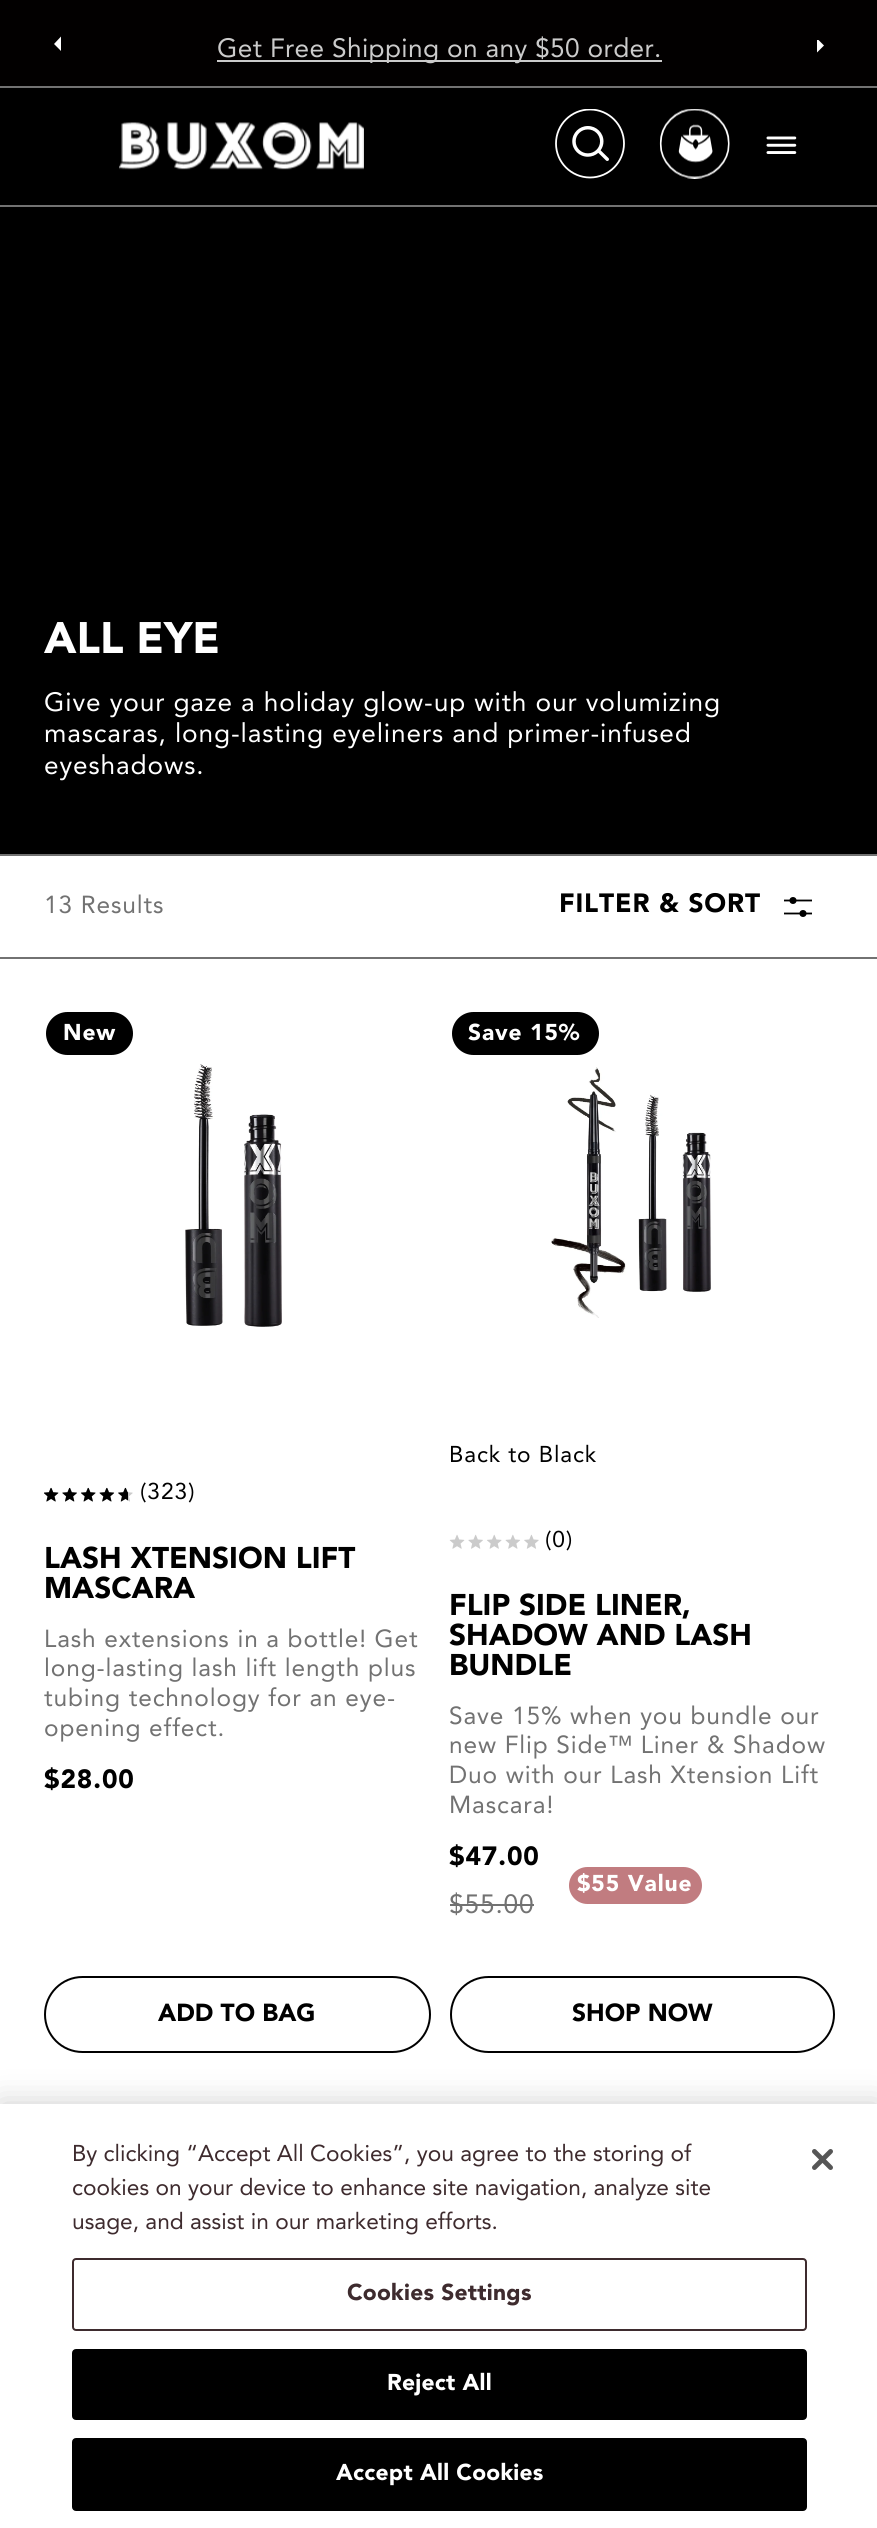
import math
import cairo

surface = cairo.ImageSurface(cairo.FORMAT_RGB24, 877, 2528)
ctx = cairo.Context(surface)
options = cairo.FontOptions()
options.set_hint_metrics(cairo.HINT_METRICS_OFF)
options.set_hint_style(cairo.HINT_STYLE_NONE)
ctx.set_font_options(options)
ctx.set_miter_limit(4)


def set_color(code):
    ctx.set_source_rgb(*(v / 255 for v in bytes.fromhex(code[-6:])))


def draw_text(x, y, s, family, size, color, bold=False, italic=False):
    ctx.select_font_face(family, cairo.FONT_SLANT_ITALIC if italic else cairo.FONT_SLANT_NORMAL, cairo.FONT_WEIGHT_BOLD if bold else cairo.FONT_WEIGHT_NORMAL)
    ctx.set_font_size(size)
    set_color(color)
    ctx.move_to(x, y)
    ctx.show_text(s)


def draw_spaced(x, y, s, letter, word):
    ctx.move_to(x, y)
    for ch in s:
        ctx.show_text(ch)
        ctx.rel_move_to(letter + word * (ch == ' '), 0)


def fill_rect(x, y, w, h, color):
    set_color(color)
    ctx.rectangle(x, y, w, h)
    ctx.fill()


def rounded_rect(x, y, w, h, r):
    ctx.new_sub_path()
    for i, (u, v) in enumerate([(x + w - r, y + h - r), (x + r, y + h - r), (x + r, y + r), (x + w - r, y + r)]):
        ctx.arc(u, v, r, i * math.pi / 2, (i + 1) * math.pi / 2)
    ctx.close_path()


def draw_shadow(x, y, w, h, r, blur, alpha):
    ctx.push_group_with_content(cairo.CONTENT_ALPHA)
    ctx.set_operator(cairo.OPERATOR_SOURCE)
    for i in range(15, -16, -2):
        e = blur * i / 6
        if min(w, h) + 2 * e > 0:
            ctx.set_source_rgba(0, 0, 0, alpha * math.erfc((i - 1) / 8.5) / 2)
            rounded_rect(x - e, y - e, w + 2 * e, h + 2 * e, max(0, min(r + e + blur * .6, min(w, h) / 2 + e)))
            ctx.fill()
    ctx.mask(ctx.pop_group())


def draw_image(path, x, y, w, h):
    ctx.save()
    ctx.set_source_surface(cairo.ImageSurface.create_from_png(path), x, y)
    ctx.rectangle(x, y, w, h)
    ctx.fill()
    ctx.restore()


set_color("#ffffff")
ctx.paint()
fill_rect(0, 88, 877, 117, "#000000")
fill_rect(0, 205, 877, 2, "#727272")
fill_rect(0, 0, 877, 86, "#020000")
fill_rect(0, 86, 877, 2, "#727272")
set_color("#ffffff")
ctx.new_path()
ctx.move_to(54, 44)
ctx.line_to(61, 36.5)
ctx.line_to(61, 51)
ctx.close_path()
ctx.fill()
fill_rect(217, 60, 445, 2, "#cbcbcb")
ctx.select_font_face("Avenir")
ctx.set_font_size(26.25)
draw_spaced(217, 57, "Get Free Shipping on any $50 order.", 0.35, 0)
ctx.save()
ctx.rectangle(817, 40, 7, 14)
ctx.clip()
set_color("#ffffff")
ctx.new_path()
ctx.move_to(824, 45.5)
ctx.line_to(817, 52.5)
ctx.line_to(817, 38.5)
ctx.close_path()
ctx.fill()
ctx.restore()
draw_image("assets/img1.png", 119, 122, 245, 48)
draw_image("assets/img2.png", 555, 109, 70, 70)
draw_image("assets/img3.png", 659, 109, 71, 70)
draw_image("assets/img4.png", 766, 136, 31, 18)
fill_rect(0, 207, 877, 647, "#000000")
draw_text(44, 653, "ALL EYE", "Avenir Black", 43.75, "#ffffff")
ctx.select_font_face("Avenir")
ctx.set_font_size(26.25)
draw_spaced(44, 711, "Give your gaze a holiday glow-up with our volumizing", 0.88, 0)
draw_spaced(44, 742, "mascaras, long-lasting eyeliners and primer-infused", 0.88, 0)
draw_spaced(44, 774, "eyeshadows.", 0.88, 0)
fill_rect(0, 854, 877, 2, "#727272")
fill_rect(0, 957, 877, 2, "#727272")
ctx.set_font_size(24.5)
draw_spaced(44, 913, "13 Results", 0.88, 0)
ctx.select_font_face("Avenir Black")
ctx.set_font_size(26.25)
set_color("#000000")
draw_spaced(559, 912, "FILTER & SORT", 0.88, 0)
ctx.new_path()
ctx.arc(803, 913.5, 3.5, 0, 2 * math.pi)
ctx.fill()
ctx.arc(793, 900.5, 3.5, 0, 2 * math.pi)
ctx.fill()
ctx.new_path()
ctx.move_to(784, 900.5)
ctx.line_to(812, 900.5)
ctx.move_to(784, 913.5)
ctx.line_to(812, 913.5)
ctx.set_line_width(1.8)
ctx.stroke()
rounded_rect(46, 1012, 87, 43, 21.5)
ctx.fill()
ctx.set_font_size(22.75)
set_color("#ffffff")
draw_spaced(63, 1040, "New", 0.88, 0)
draw_image("assets/img5.png", 185, 1064, 97, 263)
draw_image("assets/img6.png", 44, 1487, 89, 15)
draw_image("assets/img7.png", 44, 1488, 84, 14)
ctx.select_font_face("Avenir")
set_color("#000000")
draw_spaced(140, 1499, "(323)", 1, 0)
draw_text(44, 1568, "LASH XTENSION LIFT", "Avenir Black", 29.75, "#000000")
draw_text(44, 1598, "MASCARA", "Avenir Black", 29.75, "#000000")
ctx.select_font_face("Avenir")
ctx.set_font_size(24.5)
set_color("#727272")
draw_spaced(44, 1647, "Lash extensions in a bottle! Get", 0.88, 0)
draw_spaced(44, 1676, "long-lasting lash lift length plus", 0.88, 0)
draw_spaced(44, 1706, "tubing technology for an eye-", 0.88, 0)
draw_spaced(44, 1736, "opening effect.", 0.88, 0)
ctx.select_font_face("Avenir Black")
ctx.set_font_size(26.25)
set_color("#000000")
draw_spaced(44, 1788, "$28.00", 0.88, 0)
rounded_rect(45, 1977, 385, 75, 37.5)
ctx.set_line_width(2)
ctx.stroke()
draw_text(158, 2021, "ADD TO BAG", "Avenir Black", 24.5, "#000000")
rounded_rect(452, 1012, 147, 43, 21.5)
ctx.fill()
ctx.set_font_size(22.75)
set_color("#ffffff")
draw_spaced(468, 1040, "Save 15%", 0.88, 0)
draw_image("assets/img8.png", 551, 1067, 160, 251)
ctx.select_font_face("Avenir")
set_color("#000000")
draw_spaced(449, 1462, "Back to Black", 0.88, 0)
draw_image("assets/img9.png", 449, 1534, 90, 15)
draw_spaced(545, 1547, "(0)", 1, 0)
draw_text(449, 1615, "FLIP SIDE LINER,", "Avenir Black", 29.75, "#000000")
draw_text(449, 1645, "SHADOW AND LASH", "Avenir Black", 29.75, "#000000")
draw_text(449, 1675, "BUNDLE", "Avenir Black", 29.75, "#000000")
ctx.select_font_face("Avenir")
ctx.set_font_size(24.5)
set_color("#727272")
draw_spaced(449, 1724, "Save 15% when you bundle our", 0.88, 0)
draw_spaced(449, 1753, "new Flip Side™ Liner & Shadow", 0.88, 0)
draw_spaced(449, 1783, "Duo with our Lash Xtension Lift", 0.88, 0)
draw_spaced(449, 1813, "Mascara!", 0.88, 0)
ctx.select_font_face("Avenir Black")
ctx.set_font_size(26.25)
set_color("#000000")
draw_spaced(449, 1865, "$47.00", 0.88, 0)
ctx.select_font_face("Avenir")
set_color("#727272")
draw_spaced(449, 1913, "$55.00", 0.88, 0)
fill_rect(450, 1904, 84, 2, "#727272")
set_color("#c17c80")
rounded_rect(569, 1867, 133, 37, 18.5)
ctx.fill()
ctx.select_font_face("Avenir Black")
ctx.set_font_size(22.75)
set_color("#ffffff")
draw_spaced(577, 1891, "$55 Value", 0.88, 0)
rounded_rect(451, 1977, 383, 75, 37.5)
set_color("#000000")
ctx.stroke()
draw_text(572, 2021, "SHOP NOW", "Avenir Black", 24.5, "#000000")
set_color("#000000")
draw_shadow(0, 2104, 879, 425, 0, 16, 0.2)
fill_rect(0, 2104, 877, 424, "#ffffff")
draw_text(72, 2161, "By clicking “Accept All Cookies”, you agree to the storing of", "Avenir", 22.75, "#3e2b2e")
draw_text(72, 2195, "cookies on your device to enhance site navigation, analyze site", "Avenir", 22.75, "#3e2b2e")
draw_text(72, 2229, "usage, and assist in our marketing efforts.", "Avenir", 22.75, "#3e2b2e")
rounded_rect(73, 2259, 733, 71, 3)
ctx.stroke()
ctx.select_font_face("Avenir Black")
draw_spaced(347, 2300, "Cookies Settings", 0.25, 0)
set_color("#000000")
rounded_rect(73, 2350, 733, 69, 3)
ctx.fill_preserve()
ctx.stroke()
set_color("#ffffff")
draw_spaced(387, 2390, "Reject All", 0.25, 0)
set_color("#000000")
rounded_rect(73, 2439, 733, 71, 3)
ctx.fill_preserve()
ctx.stroke()
set_color("#ffffff")
draw_spaced(336, 2480, "Accept All Cookies", 0.25, 0)
draw_image("assets/img10.png", 812, 2149, 21, 21)
surface.write_to_png("output.png")
